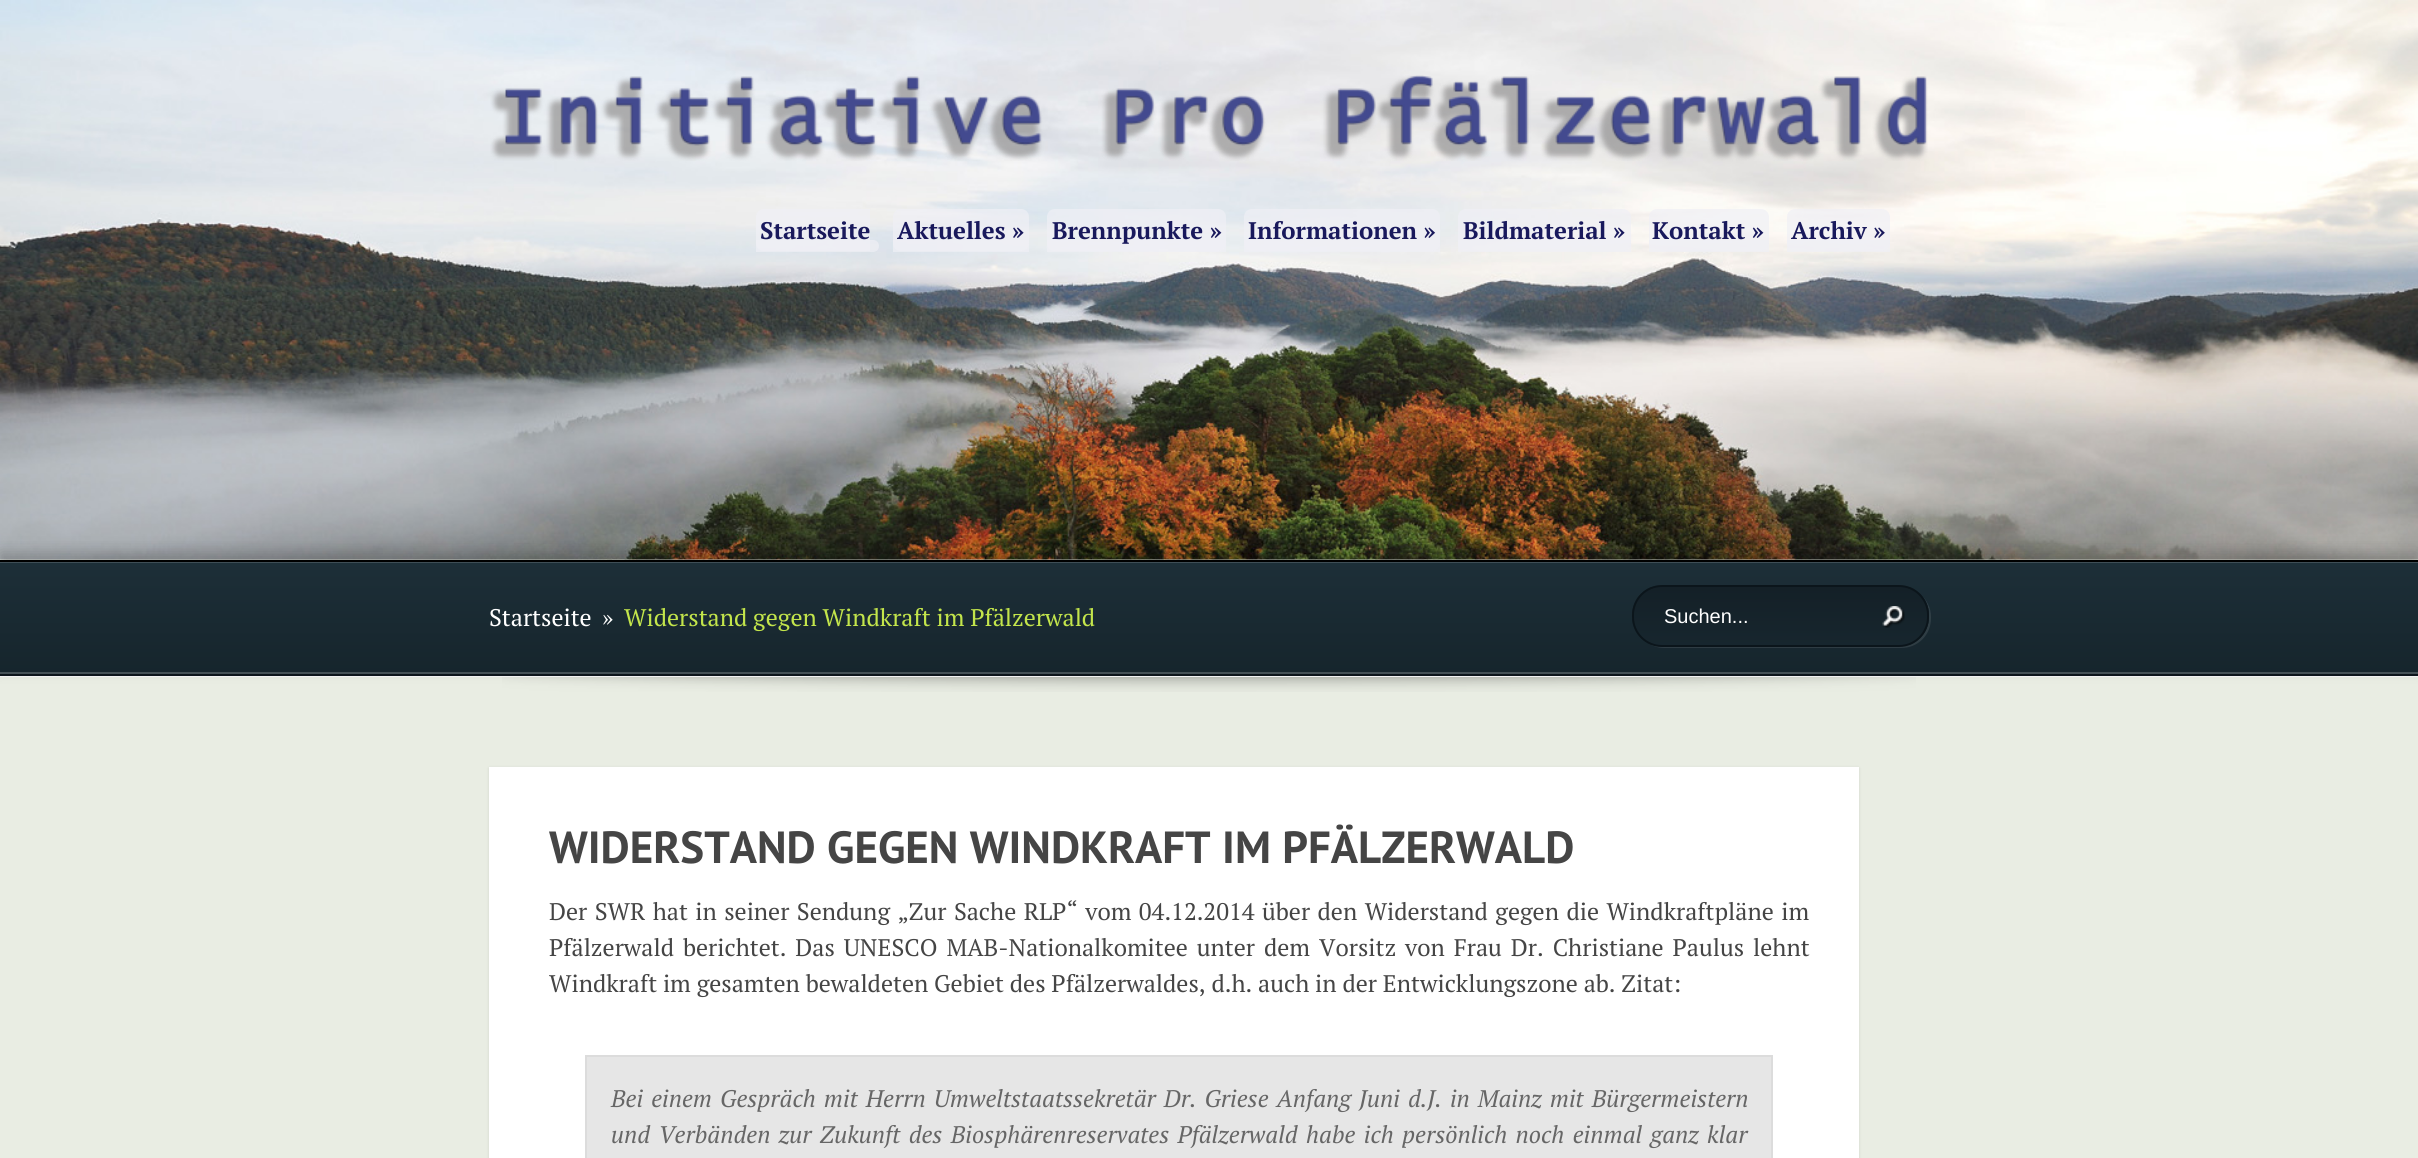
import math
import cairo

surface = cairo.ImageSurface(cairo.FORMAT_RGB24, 2418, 1158)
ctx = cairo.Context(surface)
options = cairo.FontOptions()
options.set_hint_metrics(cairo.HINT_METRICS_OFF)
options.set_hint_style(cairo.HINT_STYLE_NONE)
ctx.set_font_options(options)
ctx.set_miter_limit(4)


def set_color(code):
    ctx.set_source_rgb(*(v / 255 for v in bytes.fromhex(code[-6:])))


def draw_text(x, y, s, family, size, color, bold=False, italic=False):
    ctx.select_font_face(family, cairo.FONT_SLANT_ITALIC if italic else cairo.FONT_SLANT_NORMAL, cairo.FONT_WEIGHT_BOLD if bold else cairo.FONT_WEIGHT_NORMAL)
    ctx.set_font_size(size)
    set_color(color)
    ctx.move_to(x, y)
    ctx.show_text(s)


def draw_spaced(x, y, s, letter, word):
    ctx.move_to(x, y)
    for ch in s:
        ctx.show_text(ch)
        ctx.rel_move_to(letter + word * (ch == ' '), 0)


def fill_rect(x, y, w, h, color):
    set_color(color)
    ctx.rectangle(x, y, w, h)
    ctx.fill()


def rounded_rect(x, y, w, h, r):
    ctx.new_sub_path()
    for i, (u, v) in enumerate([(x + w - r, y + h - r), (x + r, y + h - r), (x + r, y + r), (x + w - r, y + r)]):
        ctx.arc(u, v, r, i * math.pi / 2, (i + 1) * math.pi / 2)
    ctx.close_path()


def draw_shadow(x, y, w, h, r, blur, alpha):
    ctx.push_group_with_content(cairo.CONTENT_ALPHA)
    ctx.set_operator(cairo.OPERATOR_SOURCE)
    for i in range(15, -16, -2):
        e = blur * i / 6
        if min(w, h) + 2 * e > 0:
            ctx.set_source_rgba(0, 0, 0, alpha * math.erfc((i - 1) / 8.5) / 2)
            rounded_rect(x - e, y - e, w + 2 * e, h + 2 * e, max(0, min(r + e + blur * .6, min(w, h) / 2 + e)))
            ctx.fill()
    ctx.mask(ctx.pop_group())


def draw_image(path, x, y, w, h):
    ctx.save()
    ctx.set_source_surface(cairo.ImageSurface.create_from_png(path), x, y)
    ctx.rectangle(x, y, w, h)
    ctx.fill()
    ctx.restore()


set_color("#e9ede3")
ctx.paint()
draw_image("assets/img1.png", 0, 0, 2418, 560)
draw_image("assets/img2.png", 490, 75, 1438, 86)
ctx.set_source_rgba(0.941, 0.941, 0.961, 0.7)
ctx.new_path()
ctx.move_to(764, 209)
ctx.line_to(870, 209)
ctx.line_to(870, 251)
ctx.line_to(764, 251)
ctx.curve_to(759.5, 251, 756, 247.5, 756, 243)
ctx.line_to(756, 217)
ctx.curve_to(756, 212.5, 759.5, 209, 764, 209)
ctx.close_path()
ctx.fill()
draw_text(760, 239, "Startseite", "PT Serif", 24, "#19195c", bold=True)
ctx.set_source_rgba(0.941, 0.941, 0.961, 0.7)
ctx.new_path()
ctx.move_to(756, 240)
ctx.line_to(873, 240)
ctx.curve_to(876.5, 240, 879, 242.5, 879, 246)
ctx.curve_to(879, 249.5, 876.5, 252, 873, 252)
ctx.line_to(756, 252)
ctx.close_path()
ctx.fill()
ctx.new_path()
ctx.move_to(901, 209)
ctx.line_to(1007, 209)
ctx.line_to(1007, 251)
ctx.line_to(901, 251)
ctx.curve_to(896.5, 251, 893, 247.5, 893, 243)
ctx.line_to(893, 217)
ctx.curve_to(893, 212.5, 896.5, 209, 901, 209)
ctx.close_path()
ctx.fill()
ctx.rectangle(893, 240, 136, 12)
ctx.fill()
ctx.new_path()
ctx.move_to(1007, 209)
ctx.line_to(1021, 209)
ctx.curve_to(1025.5, 209, 1029, 212.5, 1029, 217)
ctx.line_to(1029, 243)
ctx.curve_to(1029, 247.5, 1025.5, 251, 1021, 251)
ctx.line_to(1007, 251)
ctx.close_path()
ctx.fill()
draw_text(897, 239, "Aktuelles »", "PT Serif", 24, "#19195c", bold=True)
ctx.set_source_rgba(0.941, 0.941, 0.961, 0.7)
ctx.new_path()
ctx.move_to(1055, 209)
ctx.line_to(1203, 209)
ctx.line_to(1203, 251)
ctx.line_to(1055, 251)
ctx.curve_to(1050.5, 251, 1047, 247.5, 1047, 243)
ctx.line_to(1047, 217)
ctx.curve_to(1047, 212.5, 1050.5, 209, 1055, 209)
ctx.close_path()
ctx.fill()
ctx.rectangle(1047, 240, 179, 12)
ctx.fill()
ctx.new_path()
ctx.move_to(1203, 209)
ctx.line_to(1218, 209)
ctx.curve_to(1222.5, 209, 1226, 212.5, 1226, 217)
ctx.line_to(1226, 243)
ctx.curve_to(1226, 247.5, 1222.5, 251, 1218, 251)
ctx.line_to(1203, 251)
ctx.close_path()
ctx.fill()
draw_text(1052, 239, "Brennpunkte »", "PT Serif", 24, "#19195c", bold=True)
ctx.set_source_rgba(0.941, 0.941, 0.961, 0.7)
ctx.new_path()
ctx.move_to(1252, 209)
ctx.line_to(1418, 209)
ctx.line_to(1418, 251)
ctx.line_to(1252, 251)
ctx.curve_to(1247.5, 251, 1244, 247.5, 1244, 243)
ctx.line_to(1244, 217)
ctx.curve_to(1244, 212.5, 1247.5, 209, 1252, 209)
ctx.close_path()
ctx.fill()
ctx.rectangle(1244, 240, 196, 12)
ctx.fill()
ctx.new_path()
ctx.move_to(1418, 209)
ctx.line_to(1432, 209)
ctx.curve_to(1436.5, 209, 1440, 212.5, 1440, 217)
ctx.line_to(1440, 243)
ctx.curve_to(1440, 247.5, 1436.5, 251, 1432, 251)
ctx.line_to(1418, 251)
ctx.close_path()
ctx.fill()
draw_text(1248, 239, "Informationen »", "PT Serif", 24, "#19195c", bold=True)
ctx.set_source_rgba(0.941, 0.941, 0.961, 0.7)
ctx.new_path()
ctx.move_to(1466, 209)
ctx.line_to(1607, 209)
ctx.line_to(1607, 251)
ctx.line_to(1466, 251)
ctx.curve_to(1461.5, 251, 1458, 247.5, 1458, 243)
ctx.line_to(1458, 217)
ctx.curve_to(1458, 212.5, 1461.5, 209, 1466, 209)
ctx.close_path()
ctx.fill()
ctx.rectangle(1458, 240, 173, 12)
ctx.fill()
ctx.new_path()
ctx.move_to(1607, 209)
ctx.line_to(1623, 209)
ctx.curve_to(1627.5, 209, 1631, 212.5, 1631, 217)
ctx.line_to(1631, 243)
ctx.curve_to(1631, 247.5, 1627.5, 251, 1623, 251)
ctx.line_to(1607, 251)
ctx.close_path()
ctx.fill()
draw_text(1463, 239, "Bildmaterial »", "PT Serif", 24, "#19195c", bold=True)
ctx.set_source_rgba(0.941, 0.941, 0.961, 0.7)
ctx.new_path()
ctx.move_to(1657, 209)
ctx.line_to(1746, 209)
ctx.line_to(1746, 251)
ctx.line_to(1657, 251)
ctx.curve_to(1652.5, 251, 1649, 247.5, 1649, 243)
ctx.line_to(1649, 217)
ctx.curve_to(1649, 212.5, 1652.5, 209, 1657, 209)
ctx.close_path()
ctx.fill()
ctx.rectangle(1649, 240, 120, 12)
ctx.fill()
ctx.new_path()
ctx.move_to(1746, 209)
ctx.line_to(1761, 209)
ctx.curve_to(1765.5, 209, 1769, 212.5, 1769, 217)
ctx.line_to(1769, 243)
ctx.curve_to(1769, 247.5, 1765.5, 251, 1761, 251)
ctx.line_to(1746, 251)
ctx.close_path()
ctx.fill()
draw_text(1652, 239, "Kontakt »", "PT Serif", 24, "#19195c", bold=True)
ctx.set_source_rgba(0.941, 0.941, 0.961, 0.7)
ctx.new_path()
ctx.move_to(1795, 209)
ctx.line_to(1868, 209)
ctx.line_to(1868, 251)
ctx.line_to(1795, 251)
ctx.curve_to(1790.5, 251, 1787, 247.5, 1787, 243)
ctx.line_to(1787, 217)
ctx.curve_to(1787, 212.5, 1790.5, 209, 1795, 209)
ctx.close_path()
ctx.fill()
ctx.rectangle(1787, 240, 103, 12)
ctx.fill()
ctx.new_path()
ctx.move_to(1868, 209)
ctx.line_to(1882, 209)
ctx.curve_to(1886.5, 209, 1890, 212.5, 1890, 217)
ctx.line_to(1890, 243)
ctx.curve_to(1890, 247.5, 1886.5, 251, 1882, 251)
ctx.line_to(1868, 251)
ctx.close_path()
ctx.fill()
draw_text(1791, 239, "Archiv »", "PT Serif", 24, "#19195c", bold=True)
draw_image("assets/img4.png", 502, 677, 1414, 15)
fill_rect(0, 676, 2418, 1, "#f9f9f9")
set_color("#000000")
draw_shadow(0, 552, 2418, 116, 0, 7.5, 0.2)
gradient = cairo.LinearGradient(1209, 561, 1209, 674)
gradient.add_color_stop_rgba(0, 0.114, 0.184, 0.22, 1)
gradient.add_color_stop_rgba(1, 0.086, 0.145, 0.173, 1)
ctx.set_source(gradient)
ctx.rectangle(0, 563, 2418, 109)
ctx.fill()
fill_rect(0, 562, 2418, 1, "#3f4e56")
fill_rect(0, 672, 2418, 2, "#455156")
fill_rect(0, 560, 2418, 2, "#000000")
fill_rect(0, 674, 2418, 2, "#0d151b")
draw_text(489, 626, "Startseite", "PT Serif", 24, "#ffffff")
draw_text(602, 626, "»", "PT Serif", 24, "#ffffff")
draw_text(624, 626, "Widerstand gegen Windkraft im Pfälzerwald", "PT Serif", 24, "#c3e54b")
ctx.set_source_rgba(1, 1, 1, 0.1)
ctx.new_path()
ctx.move_to(1645, 641)
ctx.curve_to(1650, 645, 1657, 648, 1664, 648)
ctx.line_to(1901, 648)
ctx.curve_to(1918, 648, 1931, 635, 1931, 618)
ctx.line_to(1931, 617)
ctx.curve_to(1931, 608, 1927, 600, 1921, 595)
ctx.curve_to(1926, 600, 1929, 607, 1929, 615)
ctx.line_to(1929, 616)
ctx.curve_to(1929, 633, 1916, 646, 1899, 646)
ctx.line_to(1662, 646)
ctx.curve_to(1656, 646, 1650, 645, 1645, 641)
ctx.close_path()
ctx.fill()
ctx.save()
rounded_rect(1632, 585, 297, 62, 30)
ctx.clip()
gradient = cairo.LinearGradient(1781, 587, 1781, 645)
gradient.add_color_stop_rgba(0, 0.078, 0.125, 0.153, 1)
gradient.add_color_stop_rgba(1, 0.09, 0.149, 0.18, 1)
ctx.set_source(gradient)
ctx.rectangle(1632, 587, 297, 58)
ctx.fill()
ctx.restore()
rounded_rect(1633, 586, 295, 60, 29)
set_color("#0b151b")
ctx.stroke()
draw_text(1664, 623, "Suchen...", "Liberation Sans", 20, "#ffffff")
draw_image("assets/img3.png", 1882, 606, 23, 22)
set_color("#000000")
draw_shadow(489, 768, 1370, 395, 0, 1.5, 0.1)
fill_rect(489, 767, 1370, 391, "#ffffff")
draw_text(549, 863, "WIDERSTAND GEGEN WINDKRAFT IM PFÄLZERWALD", "PT Sans", 45, "#454545", bold=True)
ctx.select_font_face("PT Serif")
ctx.set_font_size(24)
draw_spaced(549, 920, "Der SWR hat in seiner Sendung „Zur Sache RLP“ vom 04.12.2014 über den Widerstand gegen die Windkraftpläne im", 0, 1.6)
draw_spaced(549, 956, "Pfälzerwald berichtet. Das UNESCO MAB-Nationalkomitee unter dem Vorsitz von Frau Dr. Christiane Paulus lehnt", 0, 3.1)
draw_text(549, 992, "Windkraft im gesamten bewaldeten Gebiet des Pfälzerwaldes, d.h. auch in der Entwicklungszone ab. Zitat:", "PT Serif", 24, "#454545")
set_color("#e6e6e6")
ctx.rectangle(586, 1056, 1186, 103)
ctx.fill_preserve()
set_color("#dcdcdc")
ctx.stroke()
ctx.select_font_face("PT Serif", cairo.FONT_SLANT_ITALIC)
set_color("#666666")
draw_spaced(611, 1107, "Bei einem Gespräch mit Herrn Umweltstaatssekretär Dr. Griese Anfang Juni d.J. in Mainz mit Bürgermeistern", 0, 2.25)
draw_spaced(611, 1143, "und Verbänden zur Zukunft des Biosphärenreservates Pfälzerwald habe ich persönlich noch einmal ganz klar", 0, 2.5)
surface.write_to_png("output.png")
